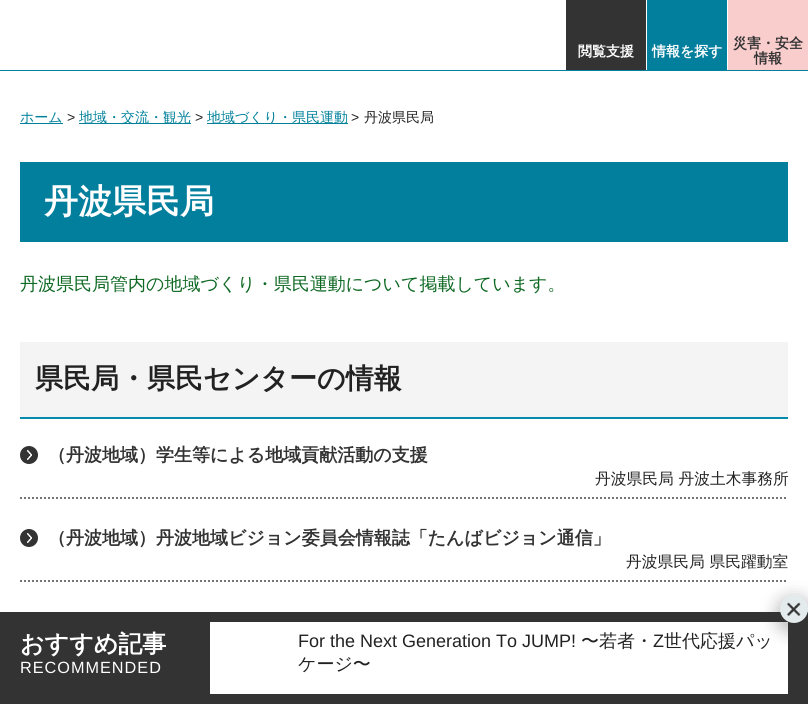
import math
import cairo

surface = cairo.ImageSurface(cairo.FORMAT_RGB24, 808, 704)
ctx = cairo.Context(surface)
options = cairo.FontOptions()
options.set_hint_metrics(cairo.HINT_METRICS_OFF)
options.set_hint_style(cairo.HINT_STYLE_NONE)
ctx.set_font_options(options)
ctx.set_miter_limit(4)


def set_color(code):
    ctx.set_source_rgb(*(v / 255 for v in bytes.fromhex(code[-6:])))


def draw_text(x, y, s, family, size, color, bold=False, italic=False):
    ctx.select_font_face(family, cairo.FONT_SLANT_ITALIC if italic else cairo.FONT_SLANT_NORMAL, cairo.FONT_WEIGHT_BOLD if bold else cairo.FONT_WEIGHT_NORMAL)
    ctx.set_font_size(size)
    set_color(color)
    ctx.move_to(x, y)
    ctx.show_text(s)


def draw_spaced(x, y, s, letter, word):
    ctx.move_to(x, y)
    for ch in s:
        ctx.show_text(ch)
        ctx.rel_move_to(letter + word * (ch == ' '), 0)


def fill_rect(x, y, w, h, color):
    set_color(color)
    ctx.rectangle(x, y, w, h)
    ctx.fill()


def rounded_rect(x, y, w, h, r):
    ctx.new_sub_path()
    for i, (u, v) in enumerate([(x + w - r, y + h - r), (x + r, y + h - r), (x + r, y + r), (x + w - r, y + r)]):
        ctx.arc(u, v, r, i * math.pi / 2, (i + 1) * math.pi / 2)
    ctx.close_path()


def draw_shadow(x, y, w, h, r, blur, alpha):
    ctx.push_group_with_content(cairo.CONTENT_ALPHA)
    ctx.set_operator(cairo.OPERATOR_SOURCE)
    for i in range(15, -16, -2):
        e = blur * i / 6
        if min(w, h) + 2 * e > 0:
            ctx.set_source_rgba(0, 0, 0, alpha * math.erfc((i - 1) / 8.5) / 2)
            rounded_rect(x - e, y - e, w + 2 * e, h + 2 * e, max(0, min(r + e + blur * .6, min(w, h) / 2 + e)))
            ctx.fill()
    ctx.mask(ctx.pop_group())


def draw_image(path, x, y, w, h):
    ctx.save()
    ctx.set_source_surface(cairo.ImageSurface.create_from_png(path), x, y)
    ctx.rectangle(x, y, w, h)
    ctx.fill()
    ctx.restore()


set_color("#ffffff")
ctx.paint()
fill_rect(0, 70, 808, 1, "#037f9e")
fill_rect(566, 0, 80, 70, "#333333")
draw_text(578, 56, "閲覧支援", "WenQuanYi Zen Hei", 14, "#ffffff", bold=True)
fill_rect(647, 0, 80, 70, "#037f9e")
draw_text(652, 56, "情報を探す", "WenQuanYi Zen Hei", 14, "#ffffff", bold=True)
fill_rect(728, 0, 80, 70, "#facdcd")
draw_text(733, 48, "災害・安全", "WenQuanYi Zen Hei", 14, "#333333", bold=True)
draw_text(754, 63, "情報", "WenQuanYi Zen Hei", 14, "#333333", bold=True)
fill_rect(20, 123, 43, 1, "#00809b")
draw_text(20, 122, "ホーム", "WenQuanYi Zen Hei Medium", 14, "#00809b")
draw_text(67, 122, ">", "Liberation Sans", 14, "#222222")
fill_rect(79, 123, 112, 1, "#00809b")
draw_text(79, 122, "地域・交流・観光", "WenQuanYi Zen Hei Medium", 14, "#00809b")
draw_text(195, 122, ">", "Liberation Sans", 14, "#222222")
fill_rect(207, 123, 141, 1, "#00809b")
draw_text(207, 122, "地域づくり・県民運動", "WenQuanYi Zen Hei Medium", 14, "#00809b")
draw_text(351, 122, ">", "Liberation Sans", 14, "#222222")
draw_text(364, 122, "丹波県民局", "WenQuanYi Zen Hei Medium", 14, "#222222")
fill_rect(20, 162, 768, 80, "#037f9e")
draw_text(44, 213, "丹波県民局", "WenQuanYi Zen Hei", 34, "#ffffff", bold=True)
draw_text(20, 290, "丹波県民局管内の地域づくり・県民運動について掲載しています。", "WenQuanYi Zen Hei Medium", 18, "#0d6822")
fill_rect(20, 342, 768, 75, "#f4f4f4")
fill_rect(20, 417, 768, 2, "#028bad")
draw_text(35, 388, "県民局・県民センターの情報", "WenQuanYi Zen Hei", 28, "#222222", bold=True)
draw_image("assets/img1.png", 20, 446, 18, 18)
ctx.new_path()
ctx.move_to(20, 498)
ctx.line_to(788, 498)
set_color("#747474")
ctx.set_dash([2, 2])
ctx.stroke()
draw_text(48, 461, "（丹波地域）学生等による地域貢献活動の支援", "WenQuanYi Zen Hei", 18, "#333333", bold=True)
draw_text(595, 484, "丹波県民局 丹波土木事務所", "WenQuanYi Zen Hei Medium", 15.75, "#222222")
draw_image("assets/img1.png", 20, 529, 18, 18)
ctx.new_path()
ctx.move_to(20, 581)
ctx.line_to(788, 581)
set_color("#747474")
ctx.stroke()
draw_text(48, 544, "（丹波地域）丹波地域ビジョン委員会情報誌「たんばビジョン通信」", "WenQuanYi Zen Hei", 18, "#333333", bold=True)
draw_text(626, 567, "丹波県民局 県民躍動室", "WenQuanYi Zen Hei Medium", 15.75, "#222222")
fill_rect(0, 612, 808, 92, "#333333")
draw_text(20, 652, "おすすめ記事", "WenQuanYi Zen Hei", 24, "#ffffff", bold=True)
ctx.select_font_face("Liberation Sans")
ctx.set_font_size(16.25)
draw_spaced(20, 673, "RECOMMENDED", 1, 0)
fill_rect(210, 622, 578, 72, "#ffffff")
draw_text(298, 647, "For the Next Generation To JUMP!", "Liberation Sans", 18, "#222222")
draw_text(581, 647, "〜若者・", "WenQuanYi Zen Hei Medium", 18, "#222222")
draw_text(653, 647, "Z", "Liberation Sans", 18, "#222222")
draw_text(664, 647, "世代応援パッ", "WenQuanYi Zen Hei Medium", 18, "#222222")
draw_text(298, 670, "ケージ〜", "WenQuanYi Zen Hei Medium", 18, "#222222")
set_color("#333333")
draw_shadow(776, 597, 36, 36, 18, 8, 0.3)
set_color("#e4ebed")
ctx.arc(794, 609, 14, 0, 2 * math.pi)
ctx.fill()
draw_image("assets/img2.png", 787, 602, 14, 14)
surface.write_to_png("output.png")
